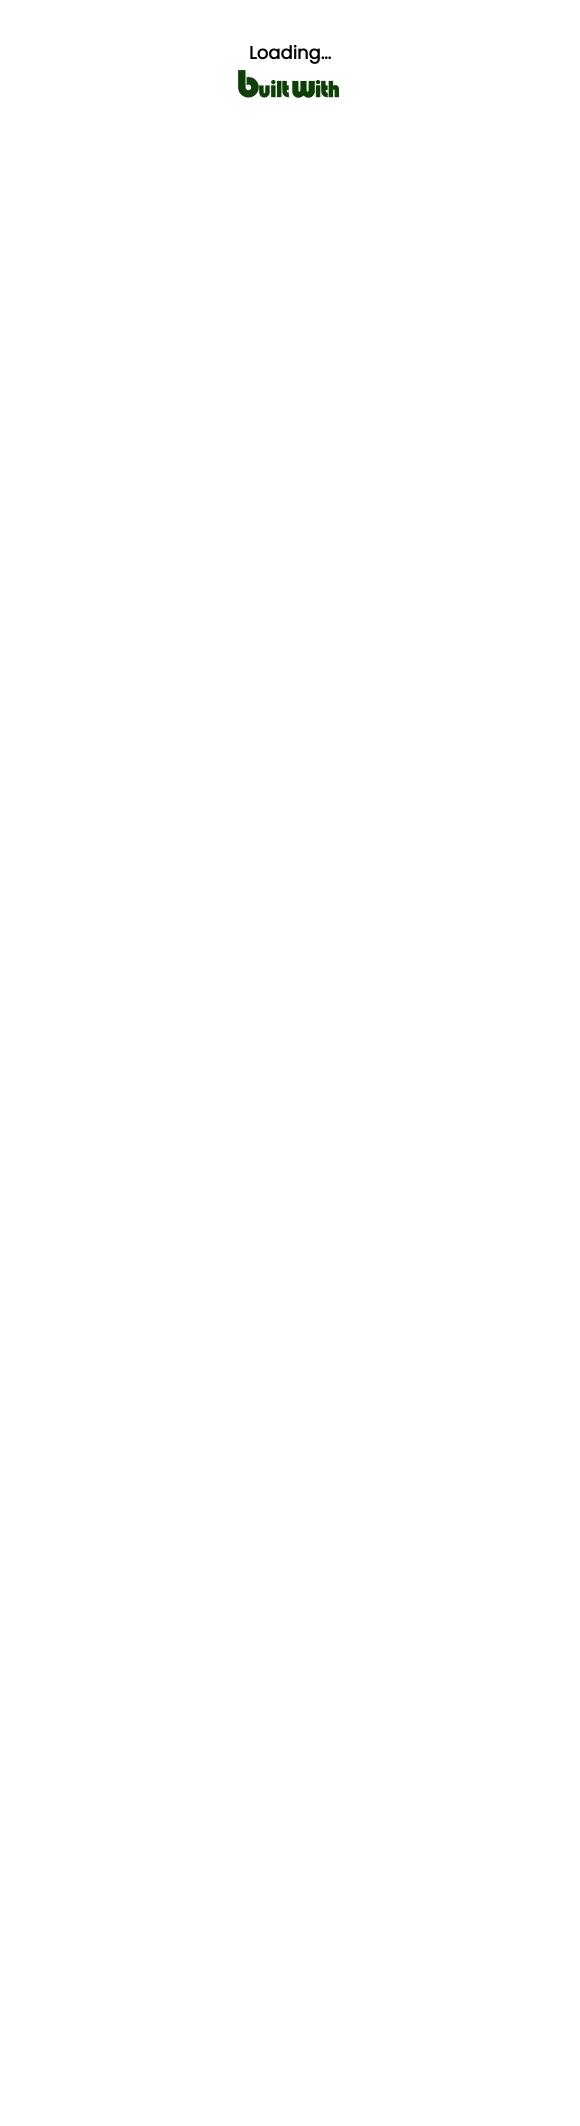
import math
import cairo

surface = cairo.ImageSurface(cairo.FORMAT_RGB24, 580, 2126)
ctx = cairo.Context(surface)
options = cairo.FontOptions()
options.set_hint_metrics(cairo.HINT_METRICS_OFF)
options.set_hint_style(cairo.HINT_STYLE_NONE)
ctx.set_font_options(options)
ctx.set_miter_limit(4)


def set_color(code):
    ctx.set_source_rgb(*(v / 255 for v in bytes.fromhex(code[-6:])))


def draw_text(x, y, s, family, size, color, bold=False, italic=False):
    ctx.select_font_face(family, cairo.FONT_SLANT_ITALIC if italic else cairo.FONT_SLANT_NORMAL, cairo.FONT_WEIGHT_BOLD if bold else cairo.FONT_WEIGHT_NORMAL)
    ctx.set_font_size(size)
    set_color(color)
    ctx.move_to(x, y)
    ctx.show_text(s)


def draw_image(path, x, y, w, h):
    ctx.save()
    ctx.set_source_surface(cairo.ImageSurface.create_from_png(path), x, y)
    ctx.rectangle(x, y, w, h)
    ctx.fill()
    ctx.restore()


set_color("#ffffff")
ctx.paint()
draw_text(249, 59, "Loading…", "Poppins", 18, "#000000", bold=True)
draw_image("assets/img1.png", 238, 70, 102, 28)
surface.write_to_png("output.png")
